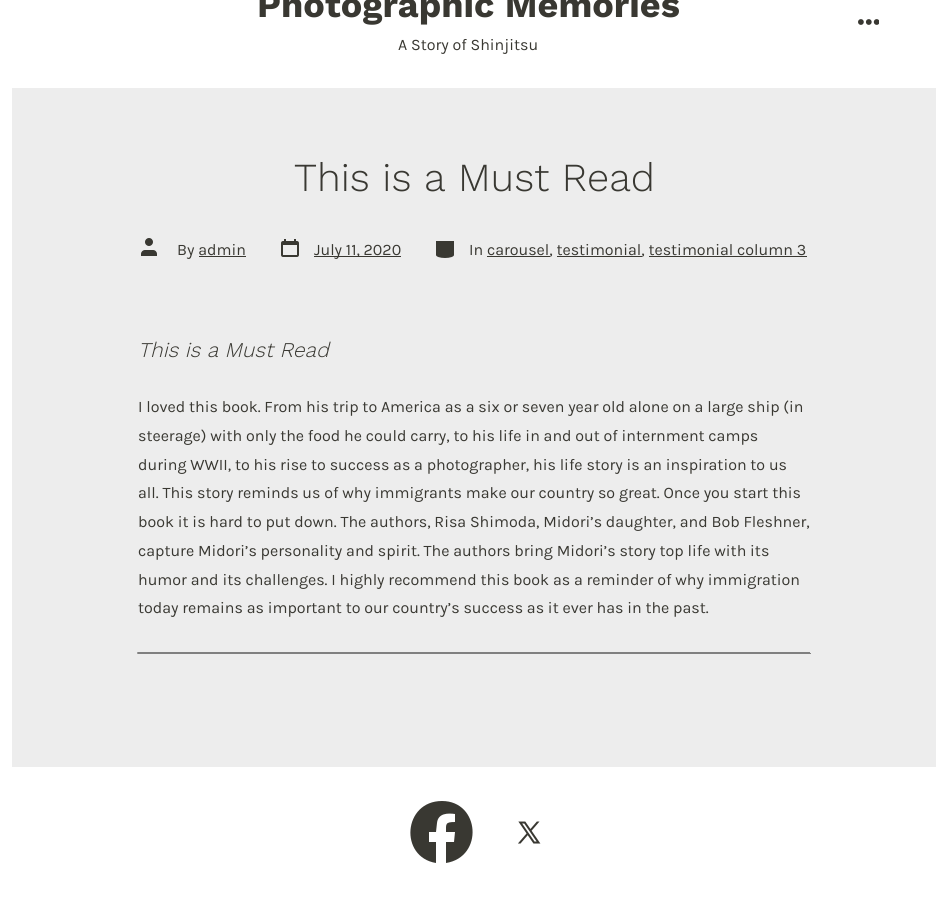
import math
import cairo

surface = cairo.ImageSurface(cairo.FORMAT_RGB24, 948, 913)
ctx = cairo.Context(surface)
options = cairo.FontOptions()
options.set_hint_metrics(cairo.HINT_METRICS_OFF)
options.set_hint_style(cairo.HINT_STYLE_NONE)
ctx.set_font_options(options)
ctx.set_miter_limit(4)


def set_color(code):
    ctx.set_source_rgb(*(v / 255 for v in bytes.fromhex(code[-6:])))


def draw_text(x, y, s, family, size, color, bold=False, italic=False):
    ctx.select_font_face(family, cairo.FONT_SLANT_ITALIC if italic else cairo.FONT_SLANT_NORMAL, cairo.FONT_WEIGHT_BOLD if bold else cairo.FONT_WEIGHT_NORMAL)
    ctx.set_font_size(size)
    set_color(color)
    ctx.move_to(x, y)
    ctx.show_text(s)


def fill_rect(x, y, w, h, color):
    set_color(color)
    ctx.rectangle(x, y, w, h)
    ctx.fill()


def draw_image(path, x, y, w, h):
    ctx.save()
    ctx.set_source_surface(cairo.ImageSurface.create_from_png(path), x, y)
    ctx.rectangle(x, y, w, h)
    ctx.fill()
    ctx.restore()


set_color("#ededed")
ctx.paint()
fill_rect(936, 0, 12, 913, "#ffffff")
fill_rect(0, 0, 12, 913, "#ffffff")
fill_rect(12, 0, 924, 88, "#ffffff")
draw_text(257, 17, "Photographic Memories", "Work Sans", 36, "#393832", bold=True)
draw_text(398, 50, "A Story of Shinjitsu", "Karla", 16, "#393832")
draw_image("assets/img1.png", 858, 19, 21, 6)
draw_text(294, 191, "This is a Must Read", "Work Sans Light", 39.75, "#393832")
draw_image("assets/img2.png", 141, 238, 16, 18)
draw_text(177, 255, "By admin", "Karla", 16, "#393832")
fill_rect(199, 256, 47, 1, "#393832")
draw_image("assets/img3.png", 281, 239, 18, 18)
fill_rect(314, 256, 87, 1, "#393832")
draw_text(314, 255, "July 11, 2020", "Karla", 16, "#393832")
draw_image("assets/img4.png", 436, 241, 18, 17)
draw_text(469, 255, "In carousel, testimonial, testimonial column 3", "Karla", 16, "#393832")
fill_rect(487, 256, 63, 1, "#393832")
fill_rect(557, 256, 85, 1, "#393832")
fill_rect(649, 256, 158, 1, "#393832")
draw_text(138, 357, "This is a Must Read", "Work Sans Light", 21, "#393832", italic=True)
draw_text(138, 412, "I loved this book. From his trip to America as a six or seven year old alone on a large ship (in", "Karla", 16, "#393832")
draw_text(138, 441, "steerage) with only the food he could carry, to his life in and out of internment camps", "Karla", 16, "#393832")
draw_text(138, 470, "during WWII, to his rise to success as a photographer, his life story is an inspiration to us", "Karla", 16, "#393832")
draw_text(138, 498, "all. This story reminds us of why immigrants make our country so great. Once you start this", "Karla", 16, "#393832")
draw_text(138, 527, "book it is hard to put down. The authors, Risa Shimoda, Midori’s daughter, and Bob Fleshner,", "Karla", 16, "#393832")
draw_text(138, 556, "capture Midori’s personality and spirit. The authors bring Midori’s story top life with its", "Karla", 16, "#393832")
draw_text(138, 585, "humor and its challenges. I highly recommend this book as a reminder of why immigration", "Karla", 16, "#393832")
draw_text(138, 613, "today remains as important to our country’s success as it ever has in the past.", "Karla", 16, "#393832")
fill_rect(137, 652, 674, 1, "#808080")
fill_rect(810, 652, 1, 2, "#eeeeee")
fill_rect(137, 653, 674, 1, "#808080")
fill_rect(137, 652, 1, 2, "#9f9f9f")
fill_rect(12, 767, 924, 146, "#ffffff")
set_color("#393832")
ctx.new_path()
ctx.move_to(442, 801)
ctx.curve_to(403, 801, 399, 857, 436, 863)
ctx.line_to(436, 842)
ctx.line_to(429, 842)
ctx.line_to(429, 832)
ctx.line_to(436, 832)
ctx.line_to(437, 823)
ctx.curve_to(438, 813, 448, 813, 455, 814)
ctx.line_to(455, 822)
ctx.curve_to(445, 822, 446, 824, 446, 832)
ctx.line_to(455, 832)
ctx.line_to(454, 842)
ctx.line_to(446, 842)
ctx.line_to(446, 863)
ctx.curve_to(484, 857, 480, 801, 442, 801)
ctx.close_path()
ctx.fill()
draw_image("assets/img5.png", 518, 821, 23, 23)
surface.write_to_png("output.png")
